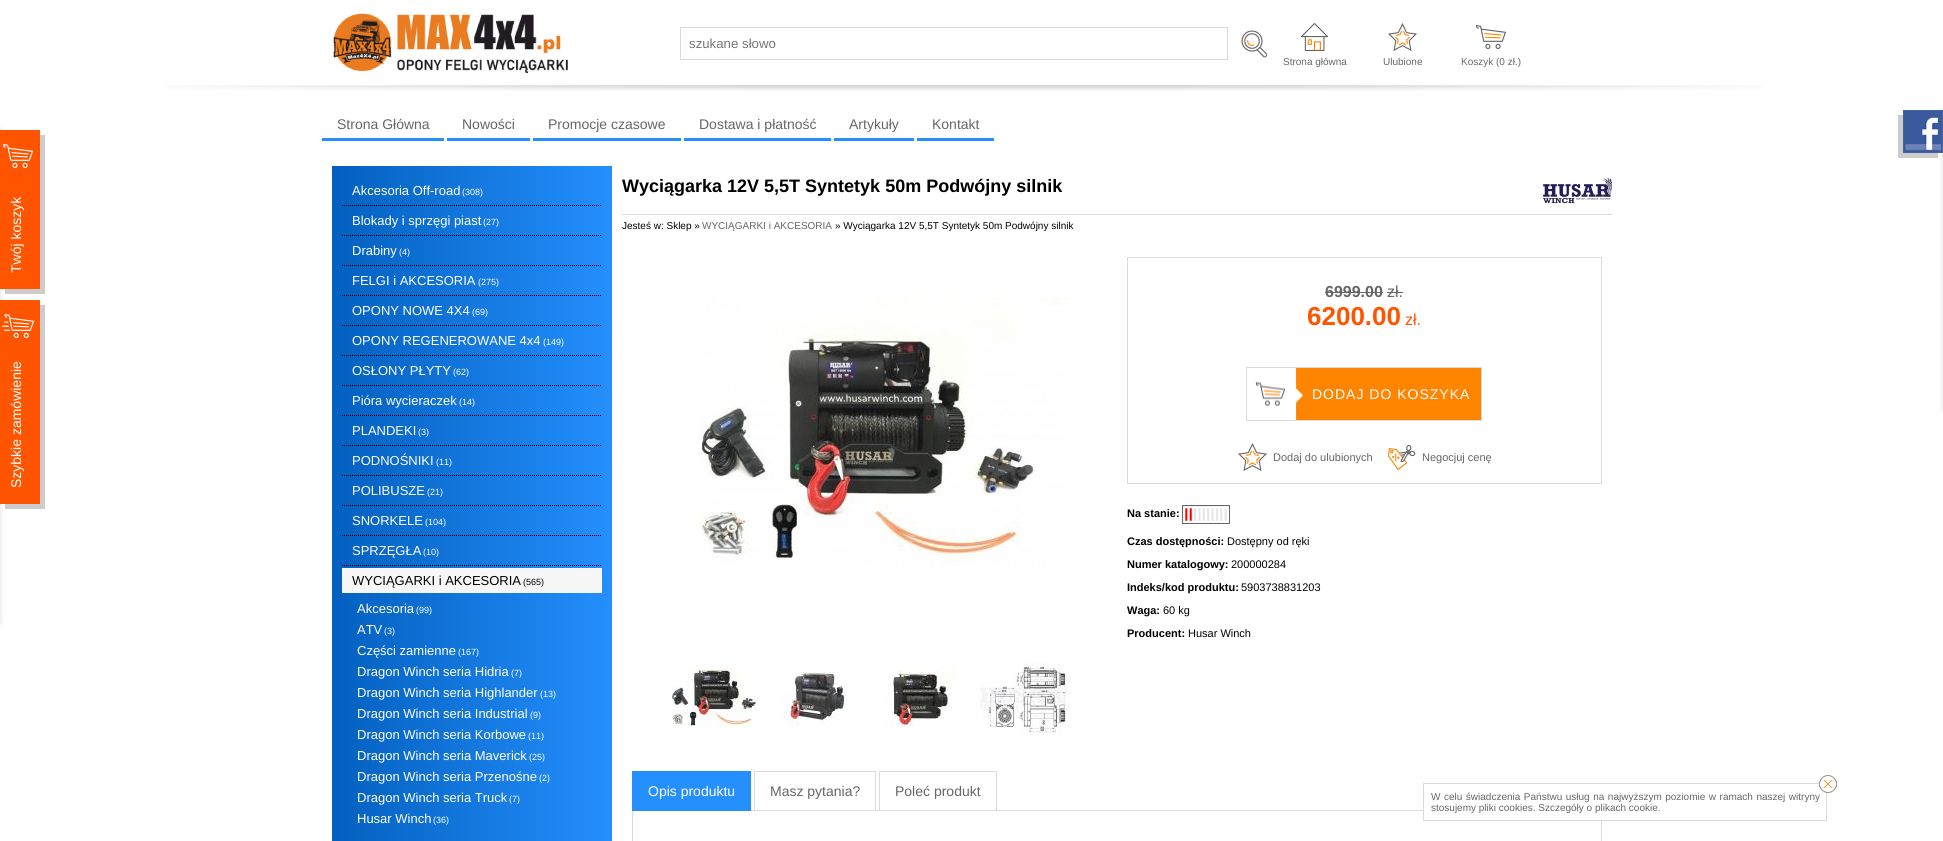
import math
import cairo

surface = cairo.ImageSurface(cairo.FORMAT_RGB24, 1943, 841)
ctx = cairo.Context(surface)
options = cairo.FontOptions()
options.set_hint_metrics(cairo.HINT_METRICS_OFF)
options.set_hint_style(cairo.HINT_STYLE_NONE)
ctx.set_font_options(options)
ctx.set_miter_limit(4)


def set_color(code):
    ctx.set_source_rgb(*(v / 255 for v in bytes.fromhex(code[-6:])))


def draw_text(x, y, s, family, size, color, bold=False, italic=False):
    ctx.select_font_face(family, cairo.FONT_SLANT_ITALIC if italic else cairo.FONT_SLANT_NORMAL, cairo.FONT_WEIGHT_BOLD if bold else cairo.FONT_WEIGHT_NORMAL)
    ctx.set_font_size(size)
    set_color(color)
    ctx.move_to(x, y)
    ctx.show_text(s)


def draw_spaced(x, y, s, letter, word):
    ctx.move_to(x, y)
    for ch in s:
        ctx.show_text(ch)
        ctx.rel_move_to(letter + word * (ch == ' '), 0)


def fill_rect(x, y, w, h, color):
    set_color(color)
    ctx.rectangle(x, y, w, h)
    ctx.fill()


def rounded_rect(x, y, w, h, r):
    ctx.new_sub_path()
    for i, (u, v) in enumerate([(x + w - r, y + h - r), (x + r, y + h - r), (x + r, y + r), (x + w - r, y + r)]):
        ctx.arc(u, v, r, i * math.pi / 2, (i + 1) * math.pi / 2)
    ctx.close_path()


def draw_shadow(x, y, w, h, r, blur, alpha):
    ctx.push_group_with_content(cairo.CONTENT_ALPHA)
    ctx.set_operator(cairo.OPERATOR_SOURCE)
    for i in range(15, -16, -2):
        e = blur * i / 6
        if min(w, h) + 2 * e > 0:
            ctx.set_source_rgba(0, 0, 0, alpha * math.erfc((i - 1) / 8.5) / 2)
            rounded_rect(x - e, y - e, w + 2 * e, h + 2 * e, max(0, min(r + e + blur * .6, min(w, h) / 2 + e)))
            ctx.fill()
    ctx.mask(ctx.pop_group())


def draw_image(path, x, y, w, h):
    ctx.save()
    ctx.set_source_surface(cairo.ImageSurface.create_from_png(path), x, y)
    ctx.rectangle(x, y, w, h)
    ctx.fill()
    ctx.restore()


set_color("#ffffff")
ctx.paint()
fill_rect(5, 135, 40, 159, "#cccccc")
set_color("#dbdbdb")
draw_shadow(-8, 130, 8, 234, 0, 2.5, 1)
fill_rect(0, 130, 40, 159, "#ff5400")
draw_image("assets/img1.png", 3, 144, 30, 24)
ctx.save()
ctx.translate(21, 273)
ctx.rotate(-90 * math.pi / 180)
draw_text(0, 0, "Twój koszyk", "Liberation Sans", 14, "#ffffff")
ctx.restore()
draw_image("assets/img2.png", 167, 85, 1596, 6)
draw_image("assets/img3.png", 333, 13, 235, 60)
ctx.rectangle(680.5, 27.5, 547, 32)
set_color("#dbdbdb")
ctx.set_line_width(1)
ctx.stroke()
draw_text(689, 48, "szukane słowo", "Liberation Sans", 13.25, "#757575")
draw_image("assets/img4.png", 1241, 30, 26, 28)
draw_image("assets/img5.png", 1301, 23, 27, 28)
draw_text(1283, 65, "Strona główna", "Liberation Sans", 10, "#666666")
draw_image("assets/img6.png", 1388, 23, 29, 28)
draw_text(1383, 65, "Ulubione", "Liberation Sans", 10, "#666666")
draw_image("assets/img7.png", 1476, 25, 30, 24)
draw_text(1461, 65, "Koszyk (0 zł.)", "Liberation Sans", 10, "#666666")
fill_rect(322, 138, 122, 3, "#248ffd")
draw_text(337, 129, "Strona Główna", "Liberation Sans", 14, "#666666")
fill_rect(447, 138, 83, 3, "#248ffd")
draw_text(462, 129, "Nowości", "Liberation Sans", 14, "#666666")
fill_rect(533, 138, 148, 3, "#248ffd")
draw_text(548, 129, "Promocje czasowe", "Liberation Sans", 14, "#666666")
fill_rect(684, 138, 147, 3, "#248ffd")
draw_text(699, 129, "Dostawa i płatność", "Liberation Sans", 14, "#666666")
fill_rect(834, 138, 80, 3, "#248ffd")
draw_text(849, 129, "Artykuły", "Liberation Sans", 14, "#666666")
fill_rect(917, 138, 77, 3, "#248ffd")
draw_text(932, 129, "Kontakt", "Liberation Sans", 14, "#666666")
gradient = cairo.LinearGradient(332, 625, 612, 625)
gradient.add_color_stop_rgba(0, 0.012, 0.376, 0.749, 1)
gradient.add_color_stop_rgba(1, 0.141, 0.561, 0.992, 1)
ctx.set_source(gradient)
ctx.rectangle(332, 166, 280, 675)
ctx.fill()
ctx.new_path()
ctx.move_to(342, 205.5)
ctx.line_to(602, 205.5)
set_color("#000000")
ctx.set_dash([1, 1])
ctx.stroke()
draw_text(352, 195, "Akcesoria Off-road", "Liberation Sans", 13, "#ffffff")
draw_text(462, 195, "(308)", "Liberation Sans", 9, "#ffffff")
ctx.new_path()
ctx.move_to(342, 235.5)
ctx.line_to(602, 235.5)
set_color("#000000")
ctx.stroke()
draw_text(352, 225, "Blokady i sprzęgi piast", "Liberation Sans", 13, "#ffffff")
draw_text(483, 225, "(27)", "Liberation Sans", 9, "#ffffff")
ctx.new_path()
ctx.move_to(342, 265.5)
ctx.line_to(602, 265.5)
set_color("#000000")
ctx.stroke()
draw_text(352, 255, "Drabiny", "Liberation Sans", 13, "#ffffff")
draw_text(399, 255, "(4)", "Liberation Sans", 9, "#ffffff")
ctx.new_path()
ctx.move_to(342, 295.5)
ctx.line_to(602, 295.5)
set_color("#000000")
ctx.stroke()
draw_text(352, 285, "FELGI i AKCESORIA", "Liberation Sans", 13, "#ffffff")
draw_text(478, 285, "(275)", "Liberation Sans", 9, "#ffffff")
ctx.new_path()
ctx.move_to(342, 325.5)
ctx.line_to(602, 325.5)
set_color("#000000")
ctx.stroke()
draw_text(352, 315, "OPONY NOWE 4X4", "Liberation Sans", 13, "#ffffff")
draw_text(472, 315, "(69)", "Liberation Sans", 9, "#ffffff")
ctx.new_path()
ctx.move_to(342, 355.5)
ctx.line_to(602, 355.5)
set_color("#000000")
ctx.stroke()
draw_text(352, 345, "OPONY REGENEROWANE 4x4", "Liberation Sans", 13, "#ffffff")
draw_text(543, 345, "(149)", "Liberation Sans", 9, "#ffffff")
ctx.new_path()
ctx.move_to(342, 385.5)
ctx.line_to(602, 385.5)
set_color("#000000")
ctx.stroke()
draw_text(352, 375, "OSŁONY PŁYTY", "Liberation Sans", 13, "#ffffff")
draw_text(453, 375, "(62)", "Liberation Sans", 9, "#ffffff")
ctx.new_path()
ctx.move_to(342, 415.5)
ctx.line_to(602, 415.5)
set_color("#000000")
ctx.stroke()
draw_text(352, 405, "Pióra wycieraczek", "Liberation Sans", 13, "#ffffff")
draw_text(459, 405, "(14)", "Liberation Sans", 9, "#ffffff")
ctx.new_path()
ctx.move_to(342, 445.5)
ctx.line_to(602, 445.5)
set_color("#000000")
ctx.stroke()
draw_text(352, 435, "PLANDEKI", "Liberation Sans", 13, "#ffffff")
draw_text(418, 435, "(3)", "Liberation Sans", 9, "#ffffff")
ctx.new_path()
ctx.move_to(342, 475.5)
ctx.line_to(602, 475.5)
set_color("#000000")
ctx.stroke()
draw_text(352, 465, "PODNOŚNIKI", "Liberation Sans", 13, "#ffffff")
draw_text(436, 465, "(11)", "Liberation Sans", 9, "#ffffff")
ctx.new_path()
ctx.move_to(342, 505.5)
ctx.line_to(602, 505.5)
set_color("#000000")
ctx.stroke()
draw_text(352, 495, "POLIBUSZE", "Liberation Sans", 13, "#ffffff")
draw_text(427, 495, "(21)", "Liberation Sans", 9, "#ffffff")
ctx.new_path()
ctx.move_to(342, 535.5)
ctx.line_to(602, 535.5)
set_color("#000000")
ctx.stroke()
draw_text(352, 525, "SNORKELE", "Liberation Sans", 13, "#ffffff")
draw_text(425, 525, "(104)", "Liberation Sans", 9, "#ffffff")
ctx.new_path()
ctx.move_to(342, 565.5)
ctx.line_to(602, 565.5)
set_color("#000000")
ctx.stroke()
draw_text(352, 555, "SPRZĘGŁA", "Liberation Sans", 13, "#ffffff")
draw_text(423, 555, "(10)", "Liberation Sans", 9, "#ffffff")
fill_rect(342, 568, 260, 25, "#f7f7f7")
draw_text(352, 585, "WYCIĄGARKI i AKCESORIA", "Liberation Sans", 13, "#000000")
draw_text(523, 585, "(565)", "Liberation Sans", 9, "#000000")
draw_text(357, 613, "Akcesoria", "Liberation Sans", 13, "#ffffff")
draw_text(416, 613, "(99)", "Liberation Sans", 9, "#ffffff")
draw_text(357, 634, "ATV", "Liberation Sans", 13, "#ffffff")
draw_text(384, 634, "(3)", "Liberation Sans", 9, "#ffffff")
draw_text(357, 655, "Części zamienne", "Liberation Sans", 13, "#ffffff")
draw_text(458, 655, "(167)", "Liberation Sans", 9, "#ffffff")
draw_text(357, 676, "Dragon Winch seria Hidria", "Liberation Sans", 13, "#ffffff")
draw_text(511, 676, "(7)", "Liberation Sans", 9, "#ffffff")
draw_text(357, 697, "Dragon Winch seria Highlander", "Liberation Sans", 13, "#ffffff")
draw_text(540, 697, "(13)", "Liberation Sans", 9, "#ffffff")
draw_text(357, 718, "Dragon Winch seria Industrial", "Liberation Sans", 13, "#ffffff")
draw_text(530, 718, "(9)", "Liberation Sans", 9, "#ffffff")
draw_text(357, 739, "Dragon Winch seria Korbowe", "Liberation Sans", 13, "#ffffff")
draw_text(528, 739, "(11)", "Liberation Sans", 9, "#ffffff")
draw_text(357, 760, "Dragon Winch seria Maverick", "Liberation Sans", 13, "#ffffff")
draw_text(529, 760, "(25)", "Liberation Sans", 9, "#ffffff")
draw_text(357, 781, "Dragon Winch seria Przenośne", "Liberation Sans", 13, "#ffffff")
draw_text(539, 781, "(2)", "Liberation Sans", 9, "#ffffff")
draw_text(357, 802, "Dragon Winch seria Truck", "Liberation Sans", 13, "#ffffff")
draw_text(509, 802, "(7)", "Liberation Sans", 9, "#ffffff")
draw_text(357, 823, "Husar Winch", "Liberation Sans", 13, "#ffffff")
draw_text(433, 823, "(36)", "Liberation Sans", 9, "#ffffff")
fill_rect(622, 214, 990, 1, "#dbdbdb")
draw_text(622, 192, "Wyciągarka 12V 5,5T Syntetyk 50m Podwójny silnik", "Liberation Sans", 18, "#000000", bold=True)
draw_image("assets/img8.png", 1543, 177, 69, 27)
draw_text(622, 229, "Jesteś w: Sklep »", "Liberation Sans", 10, "#000000")
draw_text(702, 229, "WYCIĄGARKI i AKCESORIA", "Liberation Sans", 10, "#666666")
draw_text(835, 229, "» Wyciągarka 12V 5,5T Syntetyk 50m Podwójny silnik", "Liberation Sans", 10, "#000000")
draw_image("assets/img9.png", 701, 296, 368, 271)
draw_image("assets/img10.png", 670, 663, 90, 65)
draw_image("assets/img11.png", 783, 671, 64, 56)
draw_image("assets/img12.png", 887, 663, 70, 65)
draw_image("assets/img13.png", 979, 663, 91, 72)
ctx.rectangle(1127.5, 257.5, 474, 226)
set_color("#dbdbdb")
ctx.set_dash([])
ctx.stroke()
draw_text(1325, 297, "6999.00", "Liberation Sans", 16, "#666666", bold=True)
fill_rect(1325, 292, 58, 1, "#666666")
draw_text(1387, 297, "zł.", "Liberation Sans", 16, "#666666")
fill_rect(1387, 292, 16, 1, "#666666")
draw_text(1307, 325, "6200.00", "Liberation Sans", 26, "#ff5400", bold=True)
draw_text(1405, 325, "zł.", "Liberation Sans", 16, "#ff5400")
fill_rect(1303, 368, 178, 52, "#ff8400")
draw_image("assets/img14.png", 1247, 368, 56, 52)
ctx.rectangle(1246.5, 367.5, 235, 53)
set_color("#dbdbdb")
ctx.stroke()
ctx.set_font_size(14)
set_color("#ffffff")
draw_spaced(1312, 399, "DODAJ DO KOSZYKA", 1, 0)
draw_image("assets/img6.png", 1238, 443, 29, 28)
draw_text(1273, 461, "Dodaj do ulubionych", "Liberation Sans", 11, "#666666")
draw_image("assets/img15.png", 1388, 444, 28, 26)
draw_text(1422, 461, "Negocjuj cenę", "Liberation Sans", 11, "#666666")
draw_text(1127, 517, "Na stanie:", "Liberation Sans", 11, "#000000", bold=True)
draw_image("assets/img16.png", 1182, 505, 48, 19)
draw_text(1127, 545, "Czas dostępności:", "Liberation Sans", 11, "#000000", bold=True)
draw_text(1227, 545, "Dostępny od ręki", "Liberation Sans", 11, "#000000")
draw_text(1127, 568, "Numer katalogowy:", "Liberation Sans", 11, "#000000", bold=True)
draw_text(1231, 568, "200000284", "Liberation Sans", 11, "#000000")
draw_text(1127, 591, "Indeks/kod produktu:", "Liberation Sans", 11, "#000000", bold=True)
draw_text(1241, 591, "5903738831203", "Liberation Sans", 11, "#000000")
draw_text(1127, 614, "Waga:", "Liberation Sans", 11, "#000000", bold=True)
draw_text(1163, 614, "60 kg", "Liberation Sans", 11, "#000000")
draw_text(1127, 637, "Producent:", "Liberation Sans", 11, "#000000", bold=True)
draw_text(1188, 637, "Husar Winch", "Liberation Sans", 11, "#000000")
ctx.rectangle(632.5, 810.5, 969, 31)
set_color("#dbdbdb")
ctx.stroke()
fill_rect(632, 771, 119, 40, "#248ffd")
draw_text(648, 796, "Opis produktu", "Liberation Sans", 14, "#ffffff")
ctx.rectangle(754.5, 771.5, 121, 39)
set_color("#dbdbdb")
ctx.stroke()
draw_text(770, 796, "Masz pytania?", "Liberation Sans", 14, "#666666")
ctx.rectangle(879.5, 771.5, 117, 39)
set_color("#dbdbdb")
ctx.stroke()
draw_text(895, 796, "Poleć produkt", "Liberation Sans", 14, "#666666")
fill_rect(1424, 810, 178, 10, "#ffffff")
ctx.rectangle(1423.5, 783.5, 403, 37)
set_color("#dbdbdb")
ctx.stroke()
draw_image("assets/img17.png", 1819, 775, 18, 18)
ctx.set_font_size(10)
set_color("#666666")
draw_spaced(1431, 800, "W celu świadczenia Państwu usług na najwyższym poziomie w ramach naszej witryny", 0, 0.75)
draw_text(1431, 811, "stosujemy pliki cookies. Szczegóły o plikach cookie.", "Liberation Sans", 10, "#666666")
fill_rect(1898, 115, 40, 43, "#cccccc")
set_color("#dbdbdb")
draw_shadow(1943, 110, 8, 300, 0, 2.5, 1)
draw_image("assets/img18.png", 1903, 110, 40, 43)
fill_rect(5, 305, 40, 204, "#cccccc")
set_color("#dbdbdb")
draw_shadow(-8, 300, 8, 323, 0, 2.5, 1)
fill_rect(0, 300, 40, 204, "#ff5400")
draw_image("assets/img19.png", 2, 314, 32, 24)
ctx.save()
ctx.translate(21, 488)
ctx.rotate(-90 * math.pi / 180)
draw_text(0, 0, "Szybkie zamówienie", "Liberation Sans", 14, "#ffffff")
ctx.restore()
surface.write_to_png("output.png")
